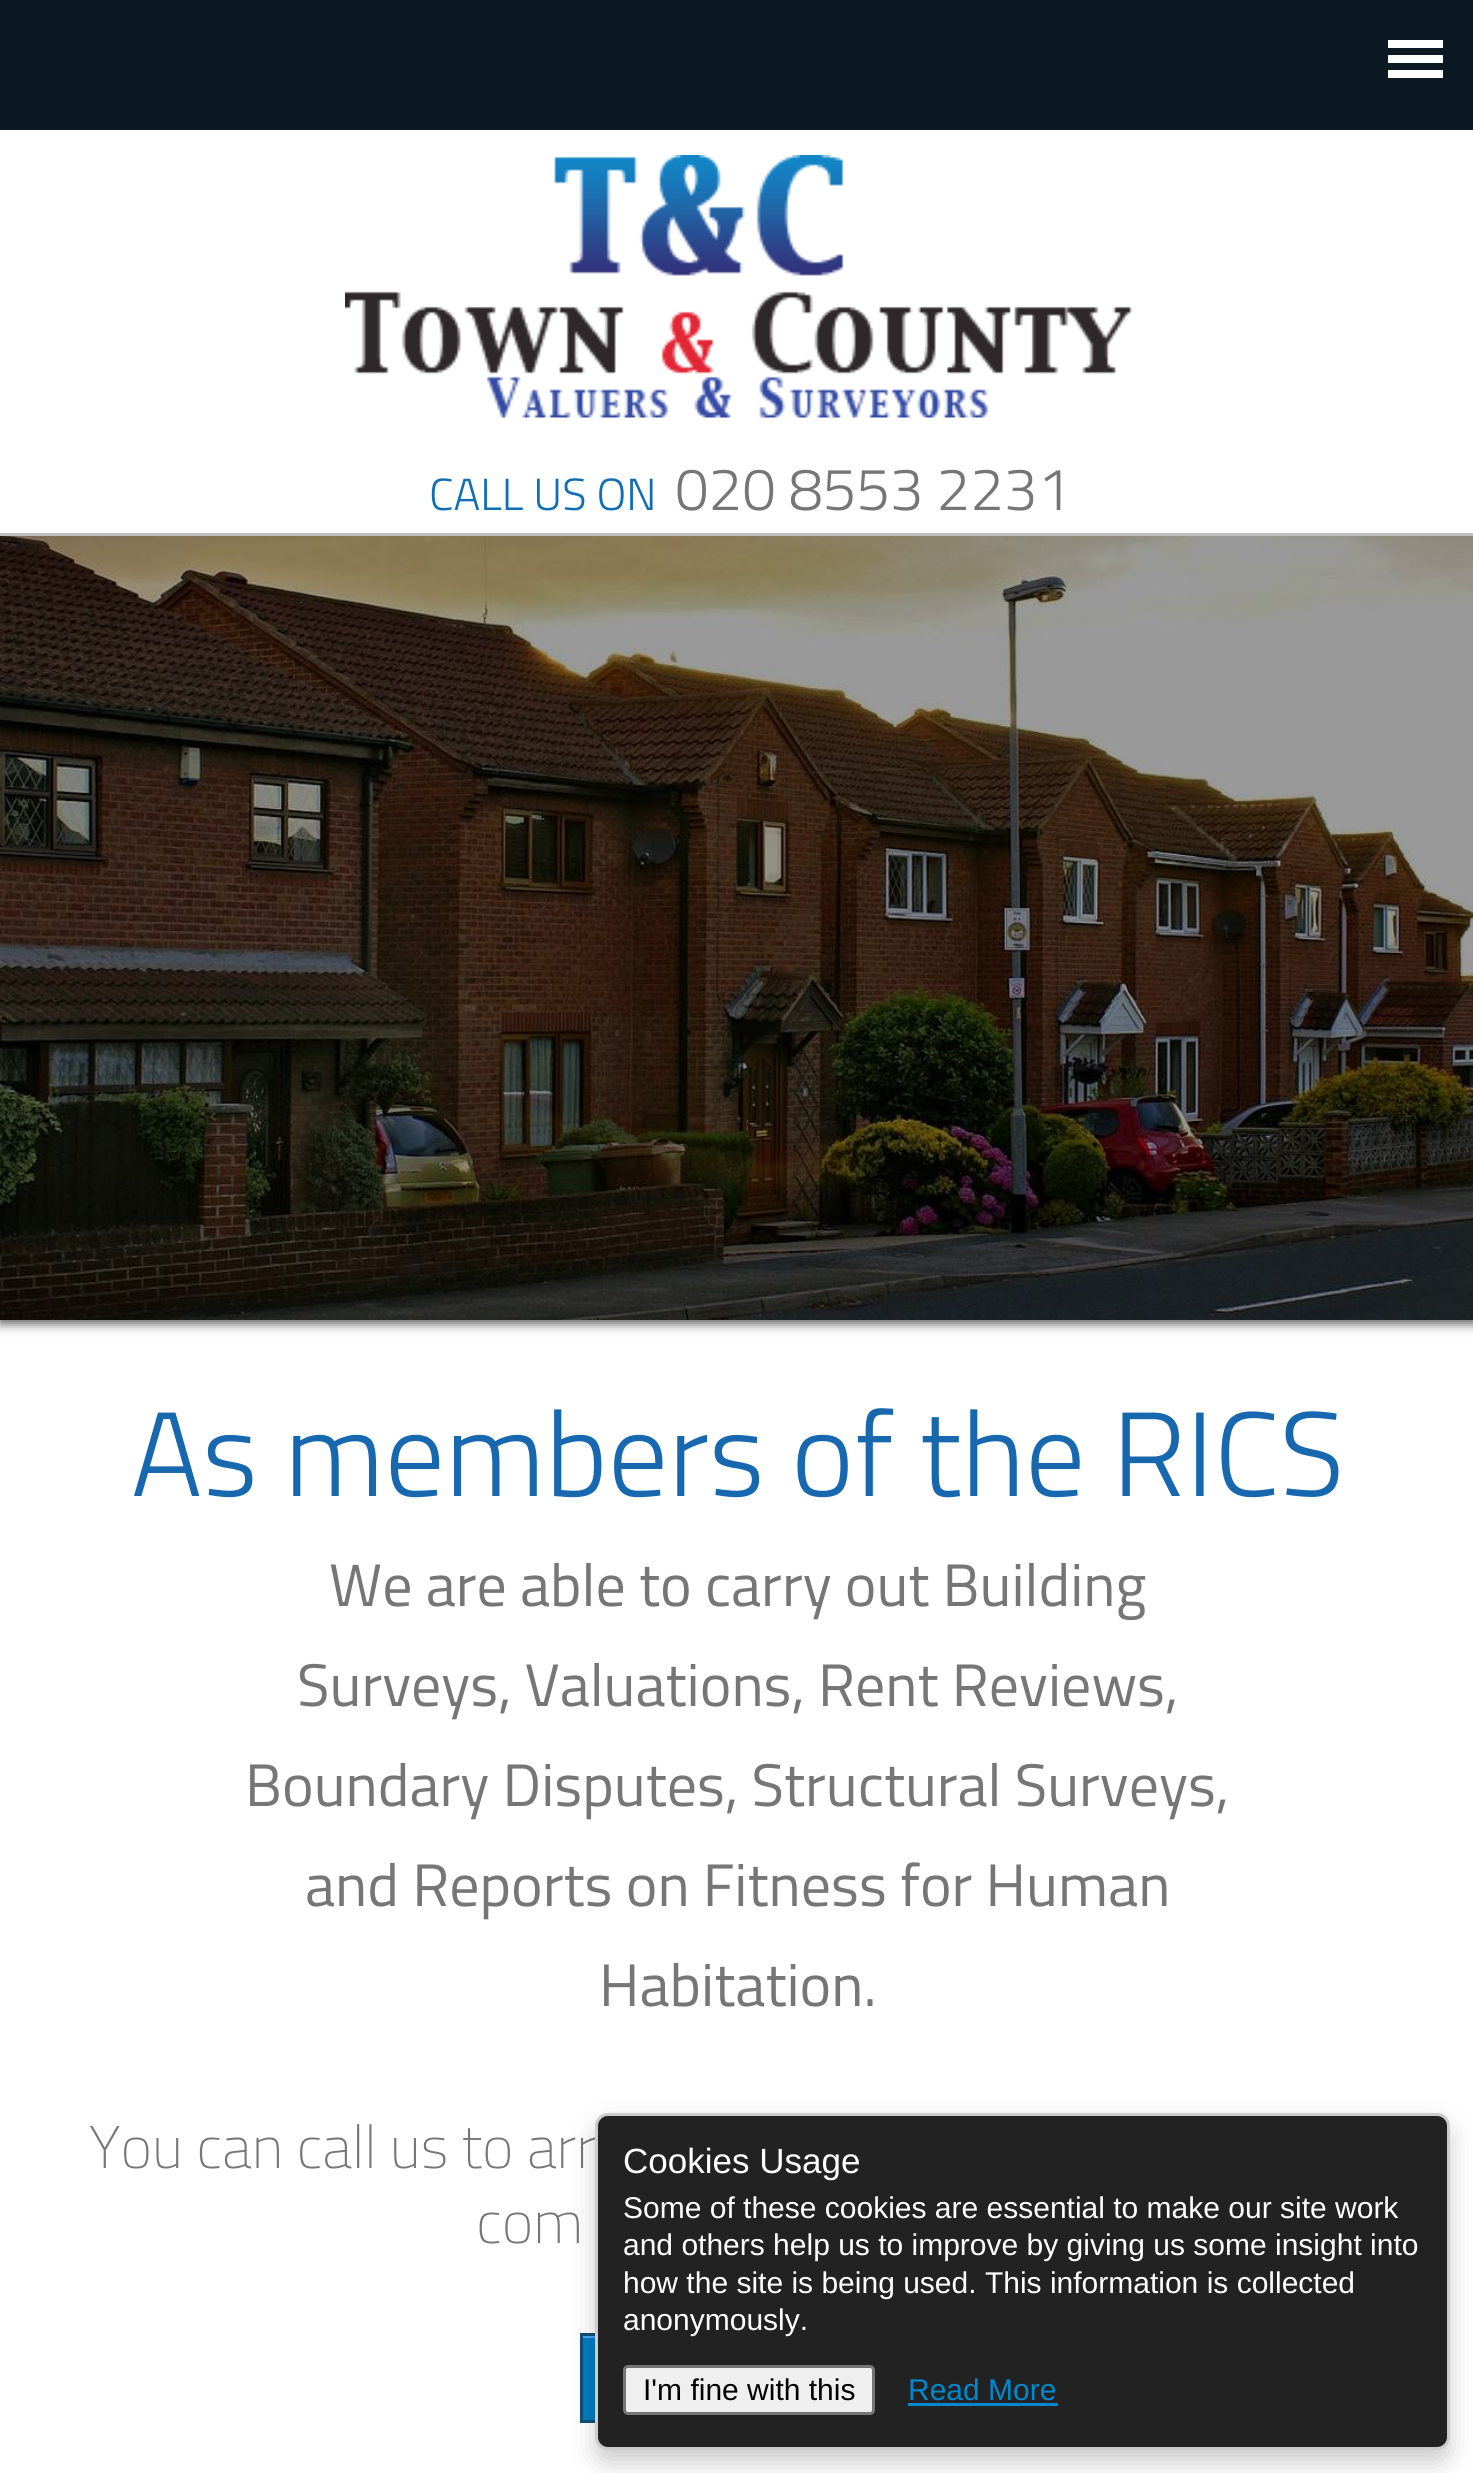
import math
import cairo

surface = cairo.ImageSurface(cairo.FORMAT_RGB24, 1473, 2473)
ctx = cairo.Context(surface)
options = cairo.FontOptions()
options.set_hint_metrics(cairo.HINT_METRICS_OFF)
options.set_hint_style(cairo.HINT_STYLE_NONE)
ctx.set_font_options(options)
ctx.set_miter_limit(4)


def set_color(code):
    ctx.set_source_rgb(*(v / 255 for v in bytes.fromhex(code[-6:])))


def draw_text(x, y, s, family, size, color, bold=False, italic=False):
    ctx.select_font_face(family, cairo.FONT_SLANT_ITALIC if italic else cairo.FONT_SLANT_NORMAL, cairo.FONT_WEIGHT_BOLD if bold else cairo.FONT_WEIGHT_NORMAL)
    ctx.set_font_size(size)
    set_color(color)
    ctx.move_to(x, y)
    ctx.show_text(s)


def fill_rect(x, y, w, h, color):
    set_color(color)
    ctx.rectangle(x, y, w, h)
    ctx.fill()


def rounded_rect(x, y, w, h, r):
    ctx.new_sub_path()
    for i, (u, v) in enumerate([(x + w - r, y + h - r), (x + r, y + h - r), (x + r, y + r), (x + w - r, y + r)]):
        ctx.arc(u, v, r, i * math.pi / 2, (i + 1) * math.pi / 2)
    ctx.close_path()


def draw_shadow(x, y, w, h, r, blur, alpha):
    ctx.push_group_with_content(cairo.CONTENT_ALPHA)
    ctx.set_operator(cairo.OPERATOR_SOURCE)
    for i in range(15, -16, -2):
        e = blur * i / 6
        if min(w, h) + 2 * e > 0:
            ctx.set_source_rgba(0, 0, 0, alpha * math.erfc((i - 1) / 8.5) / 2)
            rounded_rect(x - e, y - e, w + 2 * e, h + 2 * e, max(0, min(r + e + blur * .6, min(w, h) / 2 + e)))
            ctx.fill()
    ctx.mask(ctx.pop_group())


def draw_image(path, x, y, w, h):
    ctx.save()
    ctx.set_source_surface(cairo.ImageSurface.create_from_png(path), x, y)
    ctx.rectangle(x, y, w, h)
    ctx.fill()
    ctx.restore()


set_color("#ffffff")
ctx.paint()
fill_rect(0, 0, 1473, 130, "#0c1923")
fill_rect(1388, 40, 55, 8, "#ffffff")
fill_rect(1388, 55, 55, 8, "#ffffff")
fill_rect(1388, 70, 55, 8, "#ffffff")
set_color("#4a4a4a")
draw_shadow(0, 538, 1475, 785, 0, 6, 1)
fill_rect(0, 525, 1473, 8, "#ffffff")
fill_rect(0, 533, 1473, 3, "#c0c0c0")
draw_image("assets/img1.png", 345, 155, 788, 263)
draw_text(429, 510, "CALL US ON", "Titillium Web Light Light", 45, "#116eb5")
draw_text(675, 510, "020 8553 2231", "Titillium Web Light Light", 60, "#777676")
draw_image("assets/img2.png", 0, 536, 1473, 784)
draw_text(131, 1496, "As members of the RICS", "Titillium Web Light Light", 120, "#1768af")
draw_text(329, 1606, "We are able to carry out Building", "Titillium Web", 60, "#777676")
draw_text(297, 1706, "Surveys, Valuations, Rent Reviews,", "Titillium Web", 60, "#777676")
draw_text(245, 1806, "Boundary Disputes, Structural Surveys,", "Titillium Web", 60, "#777676")
draw_text(305, 1906, "and Reports on Fitness for Human", "Titillium Web", 60, "#777676")
draw_text(599, 2006, "Habitation.", "Titillium Web", 60, "#777676")
draw_text(89, 2168, "You can call us to arr", "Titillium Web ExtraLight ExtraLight", 60, "#777676")
draw_text(476, 2243, "com", "Titillium Web ExtraLight ExtraLight", 60, "#777676")
fill_rect(583, 2338, 12, 82, "#007dc1")
fill_rect(583, 2336, 12, 2, "#54a3f7")
ctx.rectangle(581.5, 2334.5, 312, 87)
set_color("#124d77")
ctx.set_line_width(3)
ctx.stroke()
set_color("#000000")
draw_shadow(595, 2125, 855, 338, 13, 12.5, 0.2)
set_color("#222222")
rounded_rect(596.5, 2114.5, 852, 334, 11.5)
ctx.fill_preserve()
set_color("#cccccc")
ctx.stroke()
draw_text(623, 2173, "Cookies Usage", "Liberation Sans", 35, "#ffffff")
draw_text(623, 2218, "Some of these cookies are essential to make our site work", "Liberation Sans", 30, "#ffffff")
draw_text(623, 2255, "and others help us to improve by giving us some insight into", "Liberation Sans", 30, "#ffffff")
draw_text(623, 2293, "how the site is being used. This information is collected", "Liberation Sans", 30, "#ffffff")
draw_text(623, 2330, "anonymously.", "Liberation Sans", 30, "#ffffff")
set_color("#efefef")
rounded_rect(624.5, 2366.5, 249, 47, 3.5)
ctx.fill_preserve()
set_color("#767676")
ctx.stroke()
draw_text(643, 2400, "I'm fine with this", "Liberation Sans", 30, "#000000")
draw_text(908, 2400, "Read More", "Liberation Sans", 30, "#0088cc")
fill_rect(908, 2403, 150, 3, "#0088cc")
surface.write_to_png("output.png")
